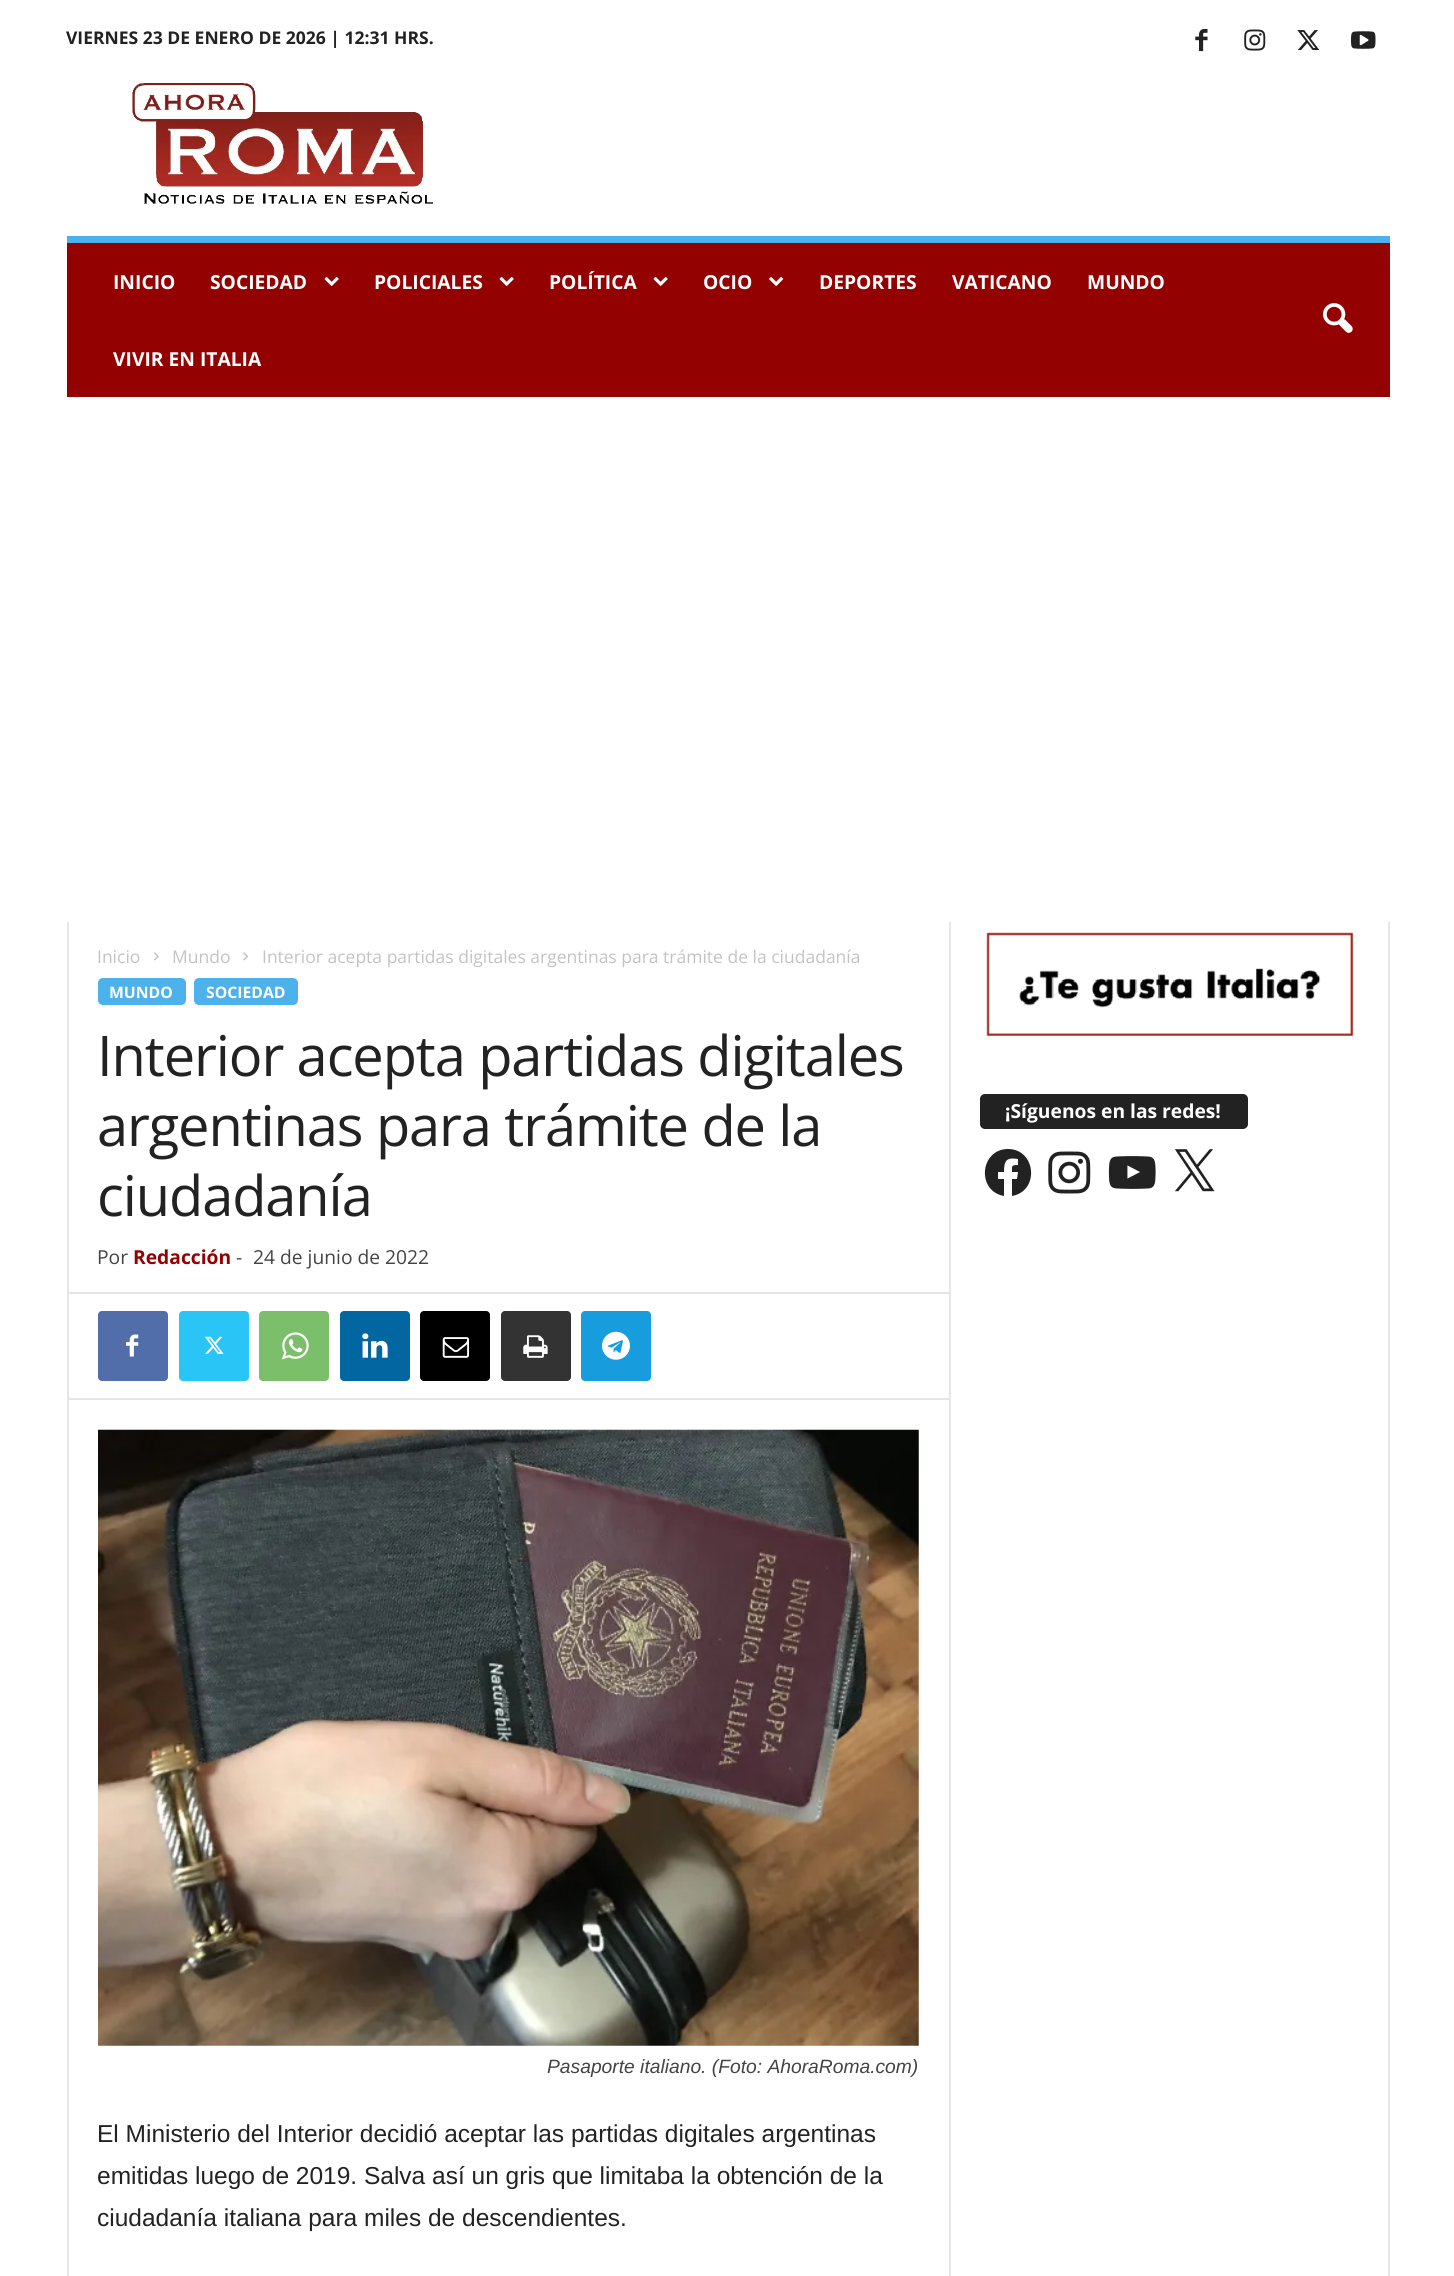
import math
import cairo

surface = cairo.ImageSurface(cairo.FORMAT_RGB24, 1454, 2276)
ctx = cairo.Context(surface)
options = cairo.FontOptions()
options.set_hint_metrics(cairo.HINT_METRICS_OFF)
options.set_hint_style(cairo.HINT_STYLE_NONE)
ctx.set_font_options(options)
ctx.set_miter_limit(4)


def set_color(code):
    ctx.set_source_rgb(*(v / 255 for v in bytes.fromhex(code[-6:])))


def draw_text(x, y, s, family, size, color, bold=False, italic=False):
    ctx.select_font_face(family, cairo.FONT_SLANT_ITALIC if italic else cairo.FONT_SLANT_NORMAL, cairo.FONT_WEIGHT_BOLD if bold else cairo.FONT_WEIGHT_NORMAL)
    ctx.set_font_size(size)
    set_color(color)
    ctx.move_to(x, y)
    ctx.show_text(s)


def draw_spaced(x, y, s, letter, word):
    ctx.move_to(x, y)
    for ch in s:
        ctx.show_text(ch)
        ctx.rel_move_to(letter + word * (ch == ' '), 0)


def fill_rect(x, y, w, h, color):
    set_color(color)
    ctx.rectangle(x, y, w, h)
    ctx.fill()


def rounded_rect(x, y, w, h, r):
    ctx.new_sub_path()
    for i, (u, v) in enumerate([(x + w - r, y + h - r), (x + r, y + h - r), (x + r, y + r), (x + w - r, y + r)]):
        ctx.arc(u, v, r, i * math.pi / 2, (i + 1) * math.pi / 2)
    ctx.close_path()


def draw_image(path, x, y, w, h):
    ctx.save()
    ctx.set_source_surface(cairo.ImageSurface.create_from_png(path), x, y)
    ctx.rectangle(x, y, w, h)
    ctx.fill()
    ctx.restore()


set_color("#ffffff")
ctx.paint()
draw_text(66, 44, "VIERNES 23 DE ENERO DE 2026 | 12:31 HRS.", "Open Sans", 17.5, "#222222", bold=True)
draw_image("assets/img1.png", 1195, 29, 13, 23)
draw_image("assets/img2.png", 1244, 29, 22, 22)
draw_image("assets/img3.png", 1297, 30, 23, 20)
draw_image("assets/img4.png", 1351, 31, 25, 18)
draw_image("assets/img5.png", 132, 83, 301, 121)
fill_rect(67, 243, 1323, 154, "#930101")
fill_rect(67, 236, 1323, 7, "#4db2ec")
draw_text(113, 289, "INICIO", "Open Sans", 19.25, "#ffffff", bold=True)
draw_text(210, 289, "SOCIEDAD", "Open Sans", 19.25, "#ffffff", bold=True)
draw_image("assets/img6.png", 324, 277, 15, 9)
draw_text(374, 289, "POLICIALES", "Open Sans", 19.25, "#ffffff", bold=True)
draw_image("assets/img6.png", 499, 277, 15, 9)
draw_text(549, 289, "POLÍTICA", "Open Sans", 19.25, "#ffffff", bold=True)
draw_image("assets/img6.png", 653, 277, 15, 9)
draw_text(703, 289, "OCIO", "Open Sans", 19.25, "#ffffff", bold=True)
draw_image("assets/img7.png", 769, 277, 15, 9)
draw_text(819, 289, "DEPORTES", "Open Sans", 19.25, "#ffffff", bold=True)
draw_text(952, 289, "VATICANO", "Open Sans", 19.25, "#ffffff", bold=True)
draw_text(1087, 289, "MUNDO", "Open Sans", 19.25, "#ffffff", bold=True)
draw_text(113, 366, "VIVIR EN ITALIA", "Open Sans", 19.25, "#ffffff", bold=True)
draw_image("assets/img8.png", 1323, 303, 30, 30)
fill_rect(67, 922, 2, 1354, "#e6e6e6")
draw_text(97, 963, "Inicio", "Open Sans", 17.5, "#c3c3c3")
draw_image("assets/img9.png", 154, 952, 5, 9)
draw_text(172, 963, "Mundo", "Open Sans", 17.5, "#c3c3c3")
draw_image("assets/img10.png", 243, 952, 5, 9)
draw_text(262, 963, "Interior acepta partidas digitales argentinas para trámite de la ciudadanía", "Open Sans", 17.5, "#c3c3c3")
set_color("#4db2ec")
rounded_rect(98, 978, 88, 27, 5)
ctx.fill()
draw_text(109, 998, "MUNDO", "Open Sans", 15.75, "#ffffff", bold=True)
set_color("#4db2ec")
rounded_rect(194, 978, 104, 27, 5)
ctx.fill()
draw_text(206, 998, "SOCIEDAD", "Open Sans", 15.75, "#ffffff", bold=True)
ctx.select_font_face("Open Sans")
ctx.set_font_size(56)
set_color("#222222")
draw_spaced(97, 1076, "Interior acepta partidas digitales", -1.1, 0)
draw_spaced(97, 1146, "argentinas para trámite de la", -1.1, 0)
draw_spaced(97, 1216, "ciudadanía", -1.1, 0)
draw_text(97, 1264, "Por", "Open Sans", 19.25, "#444444")
draw_text(133, 1264, "Redacción", "Open Sans", 19.25, "#930101", bold=True)
draw_text(236, 1264, "-", "Open Sans", 19.25, "#444444")
draw_text(253, 1264, "24 de junio de 2022", "Open Sans", 19.25, "#444444")
fill_rect(68, 1292, 881, 2, "#e6e6e6")
set_color("#516eab")
rounded_rect(98, 1311, 70, 70, 4)
ctx.fill()
draw_image("assets/img11.png", 126, 1334, 13, 23)
set_color("#29c5f6")
rounded_rect(179, 1311, 70, 70, 4)
ctx.fill()
draw_image("assets/img12.png", 204, 1336, 20, 18)
set_color("#7bbf6a")
rounded_rect(259, 1311, 70, 70, 4)
ctx.fill()
draw_image("assets/img13.png", 281, 1332, 28, 28)
set_color("#0266a0")
rounded_rect(340, 1311, 70, 70, 4)
ctx.fill()
draw_image("assets/img14.png", 362, 1333, 26, 25)
set_color("#000000")
rounded_rect(420, 1311, 70, 70, 4)
ctx.fill()
draw_image("assets/img15.png", 442, 1337, 27, 21)
set_color("#333333")
rounded_rect(501, 1311, 70, 70, 4)
ctx.fill()
draw_image("assets/img16.png", 523, 1335, 25, 23)
set_color("#179cde")
rounded_rect(581, 1311, 70, 70, 4)
ctx.fill()
draw_image("assets/img17.png", 602, 1331, 28, 29)
fill_rect(68, 1398, 881, 2, "#e6e6e6")
draw_image("assets/img18.png", 98, 1429, 821, 617)
draw_text(547, 2073, "Pasaporte italiano. (Foto: AhoraRoma.com)", "Liberation Sans", 19.25, "#444444", italic=True)
draw_text(97, 2142, "El Ministerio del Interior decidió aceptar las partidas digitales argentinas", "Liberation Sans", 24.5, "#222222")
draw_text(97, 2184, "emitidas luego de 2019. Salva así un gris que limitaba la obtención de la", "Liberation Sans", 24.5, "#222222")
draw_text(97, 2226, "ciudadanía italiana para miles de descendientes.", "Liberation Sans", 24.5, "#222222")
fill_rect(949, 922, 2, 1354, "#e6e6e6")
draw_image("assets/img19.png", 986, 932, 368, 104)
set_color("#222222")
rounded_rect(980, 1094, 268, 35, 5)
ctx.fill()
draw_text(1005, 1118, "¡Síguenos en las redes!", "Open Sans", 19.25, "#ffffff", bold=True)
set_color("#222222")
ctx.new_path()
ctx.move_to(1008, 1149)
ctx.curve_to(980, 1149, 976, 1191, 1004, 1196)
ctx.line_to(1004, 1179)
ctx.line_to(998, 1179)
ctx.line_to(998, 1172)
ctx.line_to(1004, 1172)
ctx.curve_to(1004, 1161, 1006, 1157, 1018, 1159)
ctx.line_to(1018, 1165)
ctx.curve_to(1011, 1165, 1012, 1166, 1012, 1172)
ctx.line_to(1018, 1172)
ctx.line_to(1017, 1179)
ctx.line_to(1012, 1179)
ctx.line_to(1012, 1196)
ctx.curve_to(1040, 1191, 1036, 1149, 1008, 1149)
ctx.close_path()
ctx.fill()
draw_image("assets/img20.png", 1048, 1151, 43, 43)
draw_image("assets/img21.png", 1108, 1156, 48, 33)
draw_image("assets/img22.png", 1174, 1149, 41, 43)
fill_rect(1388, 922, 2, 1354, "#e6e6e6")
surface.write_to_png("output.png")
